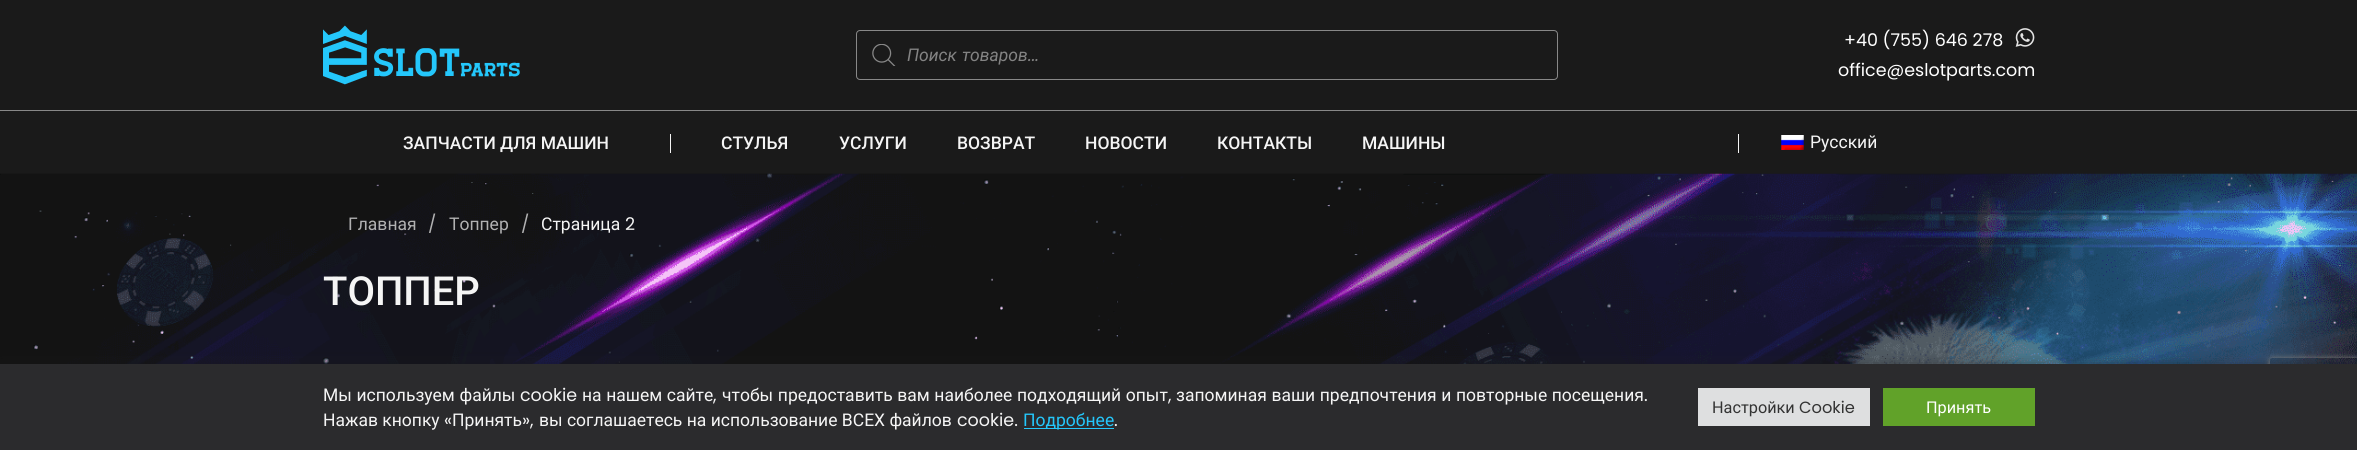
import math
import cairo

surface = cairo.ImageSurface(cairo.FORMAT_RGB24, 2357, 450)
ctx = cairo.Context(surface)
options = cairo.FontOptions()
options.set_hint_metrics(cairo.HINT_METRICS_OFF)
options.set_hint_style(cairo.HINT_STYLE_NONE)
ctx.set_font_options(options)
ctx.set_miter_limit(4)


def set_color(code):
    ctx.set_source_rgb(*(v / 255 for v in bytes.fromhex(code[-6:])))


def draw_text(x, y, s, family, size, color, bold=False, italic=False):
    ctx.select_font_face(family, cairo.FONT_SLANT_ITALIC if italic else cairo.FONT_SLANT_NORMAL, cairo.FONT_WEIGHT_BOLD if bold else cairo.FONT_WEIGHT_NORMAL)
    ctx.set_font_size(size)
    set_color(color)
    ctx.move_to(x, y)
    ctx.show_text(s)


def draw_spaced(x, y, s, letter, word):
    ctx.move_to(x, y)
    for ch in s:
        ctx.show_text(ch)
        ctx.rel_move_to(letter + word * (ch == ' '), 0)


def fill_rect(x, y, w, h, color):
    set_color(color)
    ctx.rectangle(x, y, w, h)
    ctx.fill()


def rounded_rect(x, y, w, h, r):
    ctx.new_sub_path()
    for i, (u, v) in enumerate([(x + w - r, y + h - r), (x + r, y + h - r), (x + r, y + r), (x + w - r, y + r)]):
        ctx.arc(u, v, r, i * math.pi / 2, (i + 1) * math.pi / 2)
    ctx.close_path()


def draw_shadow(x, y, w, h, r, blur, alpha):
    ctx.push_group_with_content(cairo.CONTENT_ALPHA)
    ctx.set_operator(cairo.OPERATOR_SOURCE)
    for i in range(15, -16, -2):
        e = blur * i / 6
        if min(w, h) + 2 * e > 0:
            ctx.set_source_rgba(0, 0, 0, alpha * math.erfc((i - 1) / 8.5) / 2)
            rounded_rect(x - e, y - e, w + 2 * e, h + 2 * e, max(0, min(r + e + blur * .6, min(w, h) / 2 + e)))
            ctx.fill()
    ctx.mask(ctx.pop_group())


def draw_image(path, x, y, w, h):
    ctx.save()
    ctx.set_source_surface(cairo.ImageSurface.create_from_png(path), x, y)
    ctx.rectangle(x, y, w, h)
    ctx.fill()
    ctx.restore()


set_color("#1a1a1a")
ctx.paint()
fill_rect(0, 110, 2357, 1, "#888888")
draw_image("assets/img1.png", 323, 25, 197, 60)
rounded_rect(856.5, 30.5, 701, 49, 3.5)
ctx.set_line_width(1)
ctx.stroke()
draw_image("assets/img2.png", 872, 44, 24, 22)
ctx.select_font_face("Roboto", cairo.FONT_SLANT_ITALIC)
ctx.set_font_size(17.5)
set_color("#838383")
draw_spaced(907, 61, "Поиск товаров", 0, 1)
draw_text(1028, 61, "...", "Poppins", 17.5, "#838383", italic=True)
draw_text(1844, 46, "+40 (755) 646 278", "Poppins", 17.5, "#ffffff")
draw_image("assets/img3.png", 2015, 28, 20, 19)
draw_text(1838, 76, "office@eslotparts.com", "Poppins", 17.5, "#ffffff")
draw_text(403, 149, "ЗАПЧАСТИ ДЛЯ МАШИН", "Roboto Medium", 17.5, "#f5f5f5")
fill_rect(670, 134, 1, 19, "#f5f5f5")
draw_text(721, 149, "СТУЛЬЯ", "Roboto Medium", 17.5, "#f5f5f5")
draw_text(839, 149, "УСЛУГИ", "Roboto Medium", 17.5, "#f5f5f5")
draw_text(957, 149, "ВОЗВРАТ", "Roboto Medium", 17.5, "#f5f5f5")
draw_text(1085, 149, "НОВОСТИ", "Roboto Medium", 17.5, "#f5f5f5")
draw_text(1217, 149, "КОНТАКТЫ", "Roboto Medium", 17.5, "#f5f5f5")
draw_text(1362, 149, "МАШИНЫ", "Roboto Medium", 17.5, "#f5f5f5")
fill_rect(1738, 134, 1, 19, "#f5f5f5")
draw_image("assets/img4.png", 1781, 135, 23, 15)
draw_text(1810, 148, "Русский", "Roboto", 17.5, "#f5f5f5")
draw_image("assets/img5.png", 0, 173, 2357, 191)
draw_text(348, 230, "Главная", "Roboto", 17.5, "#b1b1b2")
draw_text(428, 230, "/", "Poppins", 17.5, "#b1b1b2")
draw_text(449, 230, "Топпер", "Roboto", 17.5, "#b1b1b2")
draw_text(521, 230, "/", "Poppins", 17.5, "#b1b1b2")
draw_text(541, 230, "Страница", "Roboto", 17.5, "#f5f5f5")
draw_text(625, 230, "2", "Poppins", 17.5, "#f5f5f5")
draw_text(323, 305, "ТОППЕР", "Roboto Medium", 40, "#f5f5f5")
set_color("#1a1a1a")
draw_shadow(0, 363, 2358, 86, 0, 6, 0.4)
ctx.save()
ctx.set_fill_rule(cairo.FILL_RULE_EVEN_ODD)
ctx.new_path()
ctx.move_to(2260, 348)
ctx.line_to(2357, 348)
ctx.line_to(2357, 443)
ctx.line_to(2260, 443)
ctx.close_path()
ctx.move_to(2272.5, 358)
ctx.line_to(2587.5, 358)
ctx.curve_to(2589, 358, 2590, 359, 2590, 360.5)
ctx.line_to(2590, 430.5)
ctx.curve_to(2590, 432, 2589, 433, 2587.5, 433)
ctx.line_to(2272.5, 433)
ctx.curve_to(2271, 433, 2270, 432, 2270, 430.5)
ctx.line_to(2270, 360.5)
ctx.curve_to(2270, 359, 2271, 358, 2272.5, 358)
ctx.close_path()
ctx.clip()
set_color("#808080")
draw_shadow(2270, 358, 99, 75, 2.5, 3, 1)
ctx.restore()
fill_rect(0, 364, 2357, 86, "#2b2b2d")
ctx.select_font_face("Roboto")
ctx.set_font_size(17.5)
set_color("#f5f5f5")
draw_spaced(323, 401, "Мы используем файлы", 0, 0.25)
draw_text(520, 401, "cookie", "Poppins", 17.5, "#f5f5f5")
ctx.select_font_face("Roboto")
draw_spaced(582, 401, "на нашем сайте", 0, 0.25)
draw_text(713, 401, ",", "Poppins", 17.5, "#f5f5f5")
ctx.select_font_face("Roboto")
draw_spaced(722, 401, "чтобы предоставить вам наиболее подходящий опыт", 0, 0.25)
draw_text(1168, 401, ",", "Poppins", 17.5, "#f5f5f5")
ctx.select_font_face("Roboto")
draw_spaced(1176, 401, "запоминая ваши предпочтения и повторные посещения", 0, 0.25)
draw_text(1644, 401, ".", "Poppins", 17.5, "#f5f5f5")
draw_text(323, 426, "Нажав кнопку", "Roboto", 17.5, "#f5f5f5")
draw_text(444, 426, "«", "Poppins", 17.5, "#f5f5f5")
draw_text(452, 426, "Принять", "Roboto", 17.5, "#f5f5f5")
draw_text(522, 426, "»,", "Poppins", 17.5, "#f5f5f5")
draw_text(539, 426, "вы соглашаетесь на использование ВСЕХ файлов", "Roboto", 17.5, "#f5f5f5")
draw_text(957, 426, "cookie.", "Poppins", 17.5, "#f5f5f5")
fill_rect(1024, 428, 90, 1, "#24c7fb")
draw_text(1023, 426, "Подробнее", "Roboto", 17.5, "#24c7fb")
draw_text(1114, 426, ".", "Poppins", 17.5, "#f5f5f5")
fill_rect(1698, 388, 172, 38, "#dedfe0")
draw_text(1712, 413, "Настройки", "Roboto", 16.25, "#333333")
draw_text(1799, 413, "Cookie", "Poppins", 16.25, "#333333")
fill_rect(1883, 388, 152, 38, "#61a229")
draw_text(1926, 413, "Принять", "Roboto", 16.25, "#ffffff")
surface.write_to_png("output.png")
